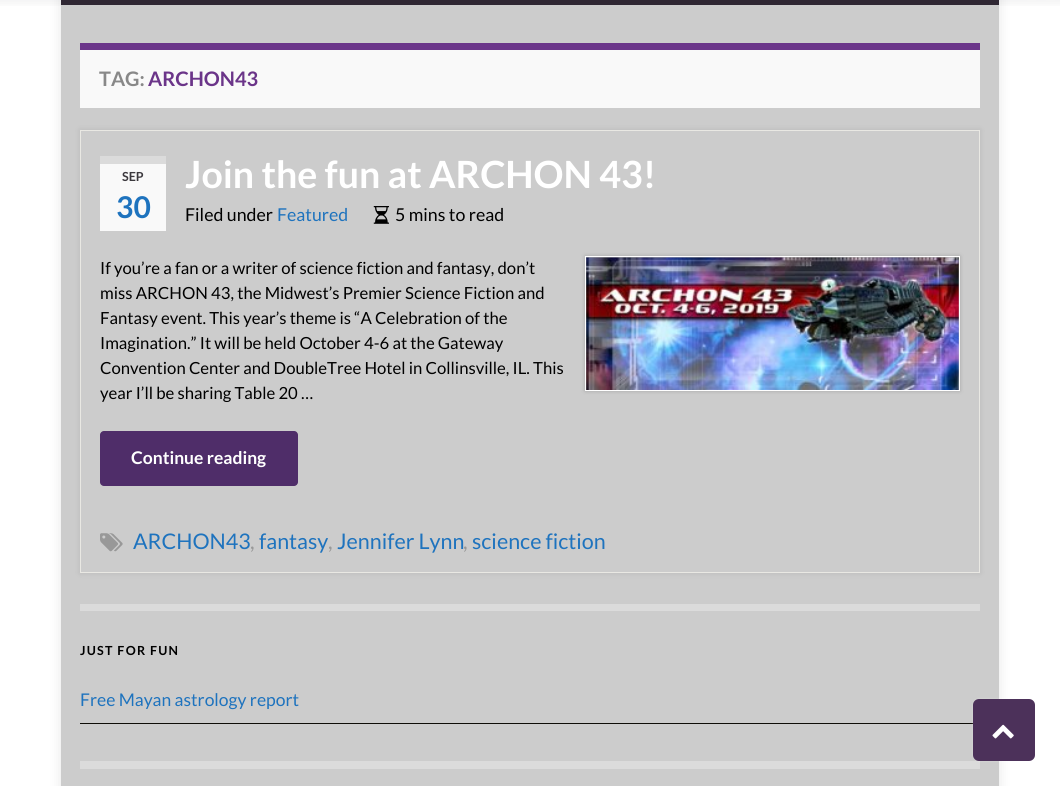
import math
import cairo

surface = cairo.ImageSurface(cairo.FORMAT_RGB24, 1060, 786)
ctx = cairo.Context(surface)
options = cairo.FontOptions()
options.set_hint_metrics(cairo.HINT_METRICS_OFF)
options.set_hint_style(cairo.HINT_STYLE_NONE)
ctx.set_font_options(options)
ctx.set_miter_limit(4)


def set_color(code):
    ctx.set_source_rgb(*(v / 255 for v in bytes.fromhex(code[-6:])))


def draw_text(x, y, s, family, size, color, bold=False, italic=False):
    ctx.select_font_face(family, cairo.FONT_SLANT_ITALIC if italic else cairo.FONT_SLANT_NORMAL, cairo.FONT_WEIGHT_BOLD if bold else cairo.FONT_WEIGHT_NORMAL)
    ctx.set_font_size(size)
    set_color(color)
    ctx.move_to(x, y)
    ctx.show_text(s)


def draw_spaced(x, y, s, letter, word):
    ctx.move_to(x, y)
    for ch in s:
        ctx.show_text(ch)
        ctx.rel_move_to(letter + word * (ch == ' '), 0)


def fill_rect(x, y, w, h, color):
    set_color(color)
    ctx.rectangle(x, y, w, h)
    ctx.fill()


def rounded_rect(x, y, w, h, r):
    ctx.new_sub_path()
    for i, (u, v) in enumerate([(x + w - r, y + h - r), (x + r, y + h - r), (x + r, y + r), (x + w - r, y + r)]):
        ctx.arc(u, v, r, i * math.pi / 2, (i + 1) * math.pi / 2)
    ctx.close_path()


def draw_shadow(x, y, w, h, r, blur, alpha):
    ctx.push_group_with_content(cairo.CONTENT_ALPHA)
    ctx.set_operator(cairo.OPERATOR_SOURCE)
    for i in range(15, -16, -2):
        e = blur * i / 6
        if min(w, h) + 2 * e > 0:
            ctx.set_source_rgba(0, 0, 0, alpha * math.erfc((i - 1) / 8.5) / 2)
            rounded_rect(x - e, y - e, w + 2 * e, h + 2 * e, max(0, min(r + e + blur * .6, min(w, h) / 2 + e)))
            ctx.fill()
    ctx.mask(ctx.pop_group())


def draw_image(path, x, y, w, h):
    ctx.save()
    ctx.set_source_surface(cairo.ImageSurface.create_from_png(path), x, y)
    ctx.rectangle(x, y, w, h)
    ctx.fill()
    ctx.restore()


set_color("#ffffff")
ctx.paint()
draw_image("assets/img1.png", 0, 0, 1060, 6)
set_color("#000000")
draw_shadow(61, -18, 938, 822, 0, 6, 0.1)
fill_rect(61, 0, 938, 5, "#2f2733")
fill_rect(61, 5, 938, 781, "#cccccc")
fill_rect(80, 50, 900, 58, "#f9f9f9")
fill_rect(80, 43, 900, 7, "#6b3589")
draw_text(99, 86, "TAG:", "Lato", 20, "#888888", bold=True)
draw_text(148, 86, "ARCHON43", "Lato", 20, "#6b3589", bold=True)
set_color("#000000")
draw_shadow(80, 130, 900, 443, 0, 3, 0.1)
set_color("#cccccc")
ctx.rectangle(80.5, 130.5, 899, 442)
ctx.fill_preserve()
set_color("#e9e8e3")
ctx.set_line_width(1)
ctx.stroke()
fill_rect(100, 164, 66, 67, "#f9f9f9")
fill_rect(100, 156, 66, 8, "#dbdbdb")
draw_text(122, 181, "SEP", "Lato", 12.5, "#3b383d", bold=True)
draw_text(116, 218, "30", "Lato", 30, "#1e73be", bold=True)
draw_text(185, 188, "Join the fun at ARCHON 43!", "Lato", 37.5, "#ffffff", bold=True)
draw_text(185, 221, "Filed under", "Lato", 17.75, "#000000")
draw_text(277, 221, "Featured", "Lato", 17.75, "#1e73be")
draw_image("assets/img2.png", 373, 206, 16, 18)
draw_text(395, 221, "5 mins to read", "Lato", 17.75, "#000000")
draw_text(100, 274, "If you’re a fan or a writer of science fiction and fantasy, don’t", "Lato", 16.7, "#000000")
draw_text(100, 299, "miss ARCHON 43, the Midwest’s Premier Science Fiction and", "Lato", 16.7, "#000000")
draw_text(100, 324, "Fantasy event. This year’s theme is “A Celebration of the", "Lato", 16.7, "#000000")
draw_text(100, 349, "Imagination.” It will be held October 4-6 at the Gateway", "Lato", 16.7, "#000000")
draw_text(100, 374, "Convention Center and DoubleTree Hotel in Collinsville, IL. This", "Lato", 16.7, "#000000")
draw_text(100, 399, "year I’ll be sharing Table 20 …", "Lato", 16.7, "#000000")
set_color("#000000")
draw_shadow(585, 256, 375, 135, 0, 2, 0.2)
ctx.rectangle(585.5, 256.5, 374, 134)
set_color("#ffffff")
ctx.stroke()
draw_image("assets/img3.png", 586, 257, 373, 133)
set_color("#4f2d69")
rounded_rect(100, 431, 198, 55, 4)
ctx.fill()
draw_text(131, 464, "Continue reading", "Lato", 17.5, "#ffffff", bold=True)
draw_image("assets/img4.png", 100, 533, 23, 19)
draw_text(133, 549, "ARCHON43", "Lato", 21.5, "#1e73be")
draw_text(250, 549, ",", "Lato", 21.5, "#989898")
draw_text(259, 549, "fantasy", "Lato", 21.5, "#1e73be")
draw_text(328, 549, ",", "Lato", 21.5, "#989898")
draw_text(337, 549, "Jennifer Lynn", "Lato", 21.5, "#1e73be")
draw_text(463, 549, ",", "Lato", 21.5, "#989898")
draw_text(472, 549, "science fiction", "Lato", 21.5, "#1e73be")
fill_rect(80, 604, 900, 7, "#dbdbdb")
ctx.select_font_face("Lato", cairo.FONT_SLANT_NORMAL, cairo.FONT_WEIGHT_BOLD)
ctx.set_font_size(12.5)
set_color("#000000")
draw_spaced(80, 655, "JUST FOR FUN", 1.25, 0)
fill_rect(80, 723, 900, 1, "#0e0c07")
draw_text(80, 706, "Free Mayan astrology report", "Lato", 17.5, "#1e73be")
fill_rect(80, 761, 900, 8, "#dbdbdb")
set_color("#ffffff")
draw_shadow(973, 699, 62, 62, 6, 1, 0.3)
set_color("#4c315a")
rounded_rect(973, 699, 62, 62, 6)
ctx.fill()
draw_image("assets/img5.png", 992, 724, 22, 15)
surface.write_to_png("output.png")
